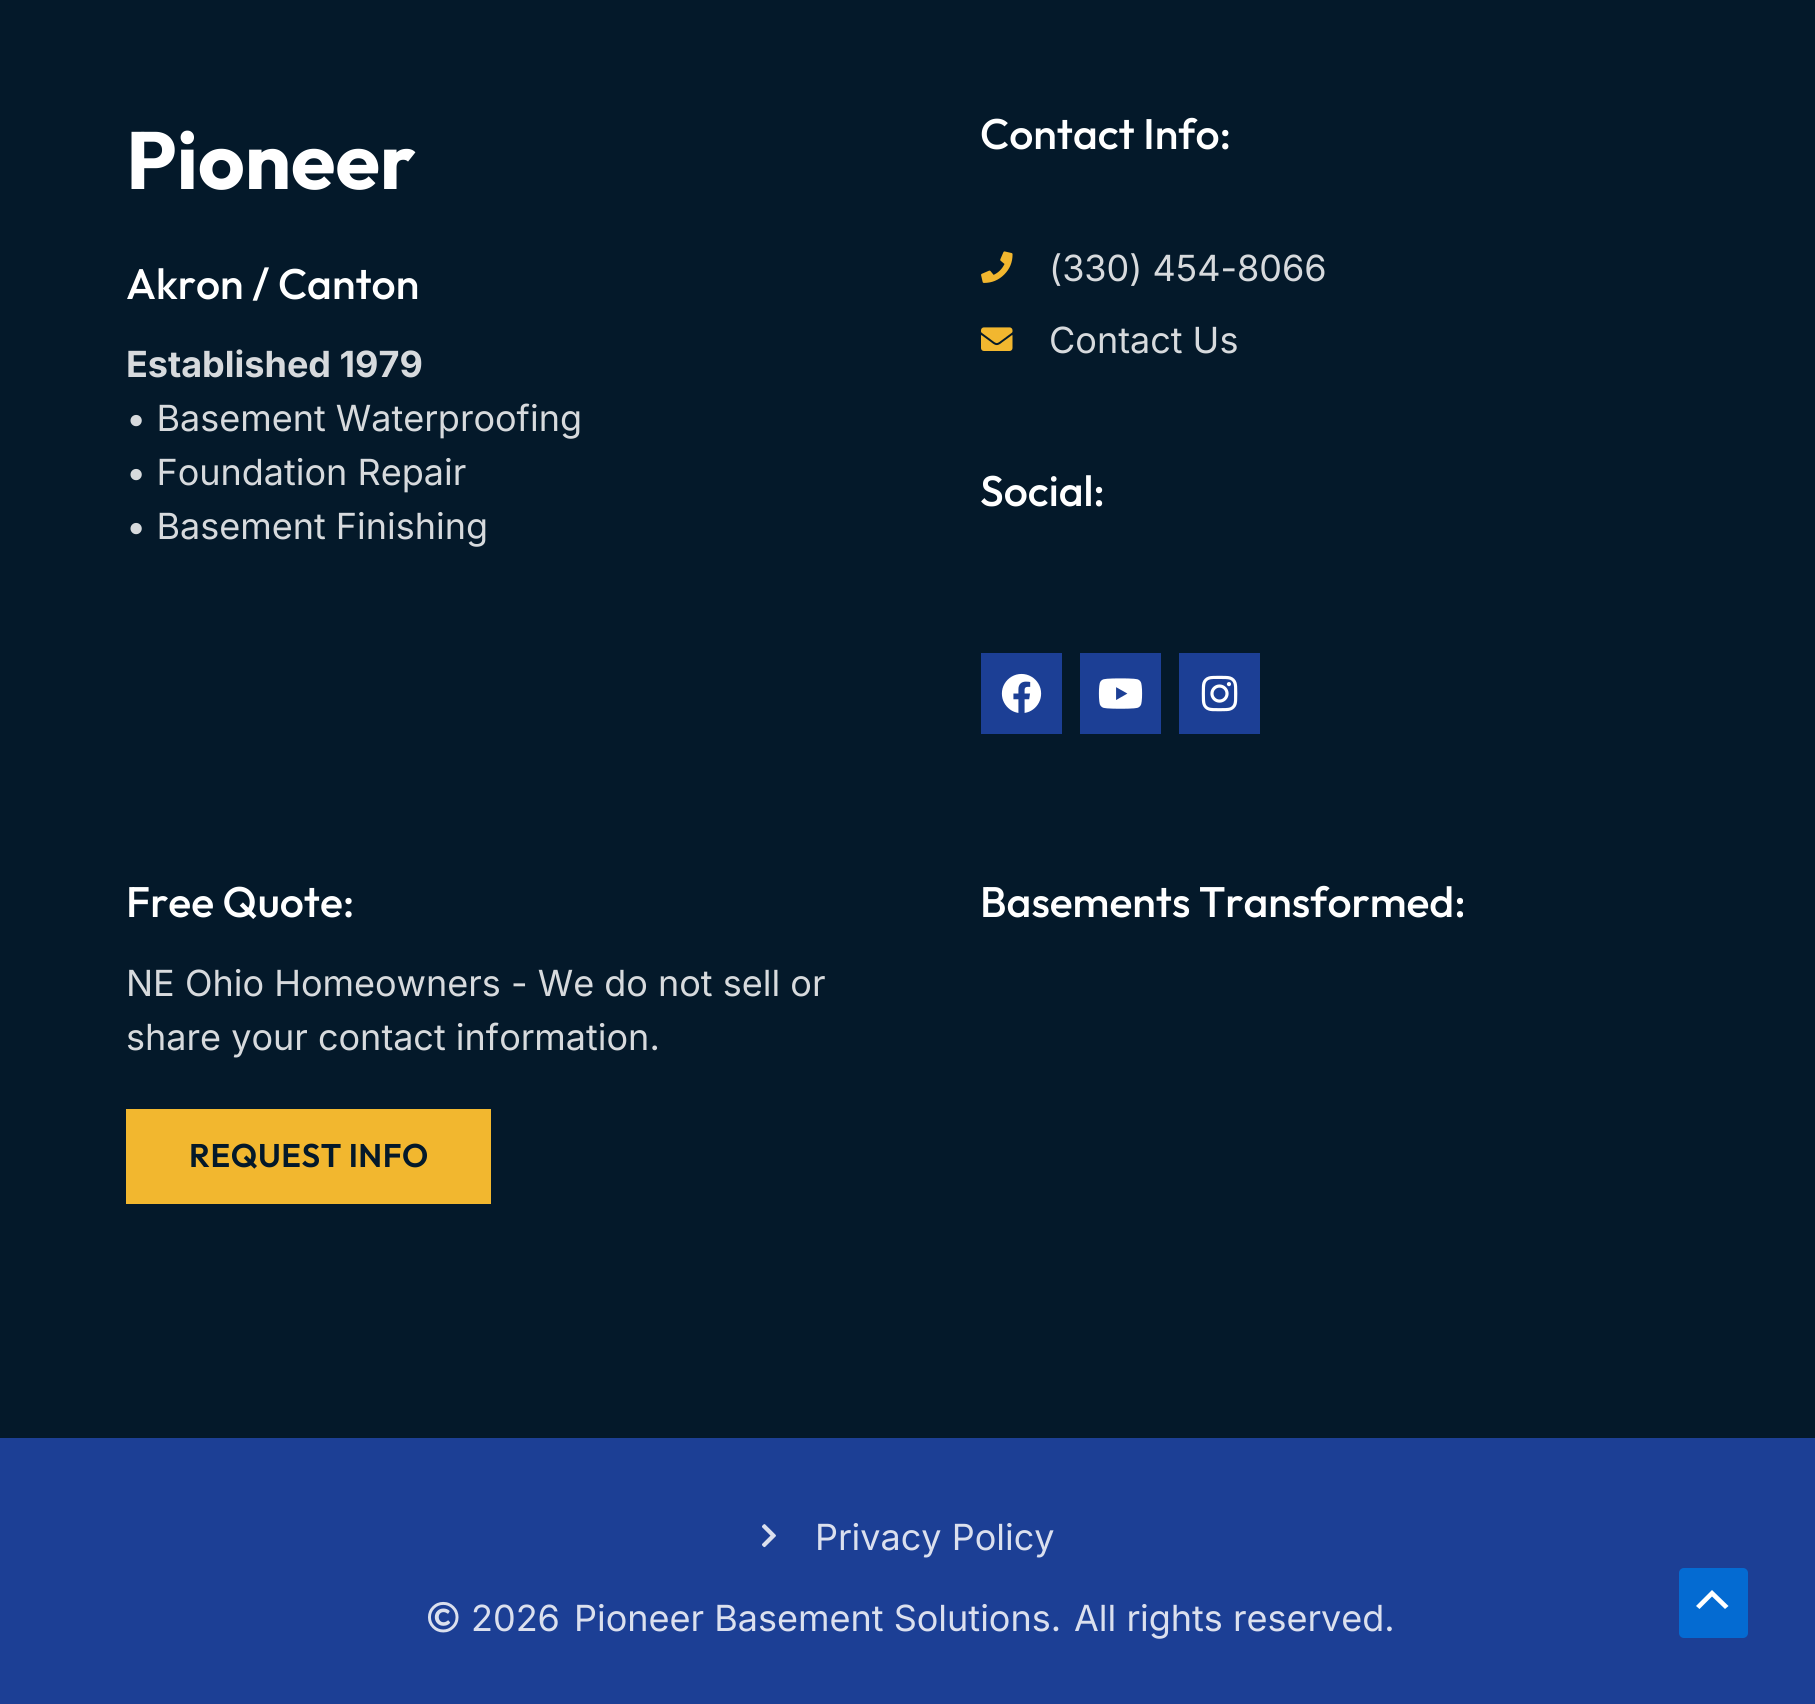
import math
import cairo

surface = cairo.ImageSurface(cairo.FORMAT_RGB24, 1815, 1704)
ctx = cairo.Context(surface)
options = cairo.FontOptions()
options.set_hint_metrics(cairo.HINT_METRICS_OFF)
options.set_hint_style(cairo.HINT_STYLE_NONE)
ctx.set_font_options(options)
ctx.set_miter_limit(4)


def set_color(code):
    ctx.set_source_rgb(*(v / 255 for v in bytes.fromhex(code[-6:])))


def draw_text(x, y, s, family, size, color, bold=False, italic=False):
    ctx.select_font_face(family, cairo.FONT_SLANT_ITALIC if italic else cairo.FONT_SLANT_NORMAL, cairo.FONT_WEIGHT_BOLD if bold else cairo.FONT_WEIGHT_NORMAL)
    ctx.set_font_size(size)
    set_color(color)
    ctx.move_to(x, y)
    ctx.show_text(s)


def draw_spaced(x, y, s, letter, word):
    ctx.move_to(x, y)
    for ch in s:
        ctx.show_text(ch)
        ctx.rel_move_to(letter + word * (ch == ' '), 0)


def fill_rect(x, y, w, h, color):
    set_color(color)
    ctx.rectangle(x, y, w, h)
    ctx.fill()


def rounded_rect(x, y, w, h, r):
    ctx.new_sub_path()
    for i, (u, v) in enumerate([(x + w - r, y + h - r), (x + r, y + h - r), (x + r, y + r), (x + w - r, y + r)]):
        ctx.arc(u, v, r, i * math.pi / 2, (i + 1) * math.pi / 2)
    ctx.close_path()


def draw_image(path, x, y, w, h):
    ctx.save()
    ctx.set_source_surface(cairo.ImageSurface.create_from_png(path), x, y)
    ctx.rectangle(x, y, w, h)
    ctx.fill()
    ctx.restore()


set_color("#04192a")
ctx.paint()
draw_text(126, 189, "Pioneer", "Outfit", 81, "#ffffff", bold=True)
draw_text(126, 299, "Akron / Canton", "Outfit Medium", 42.75, "#ffffff")
draw_text(126, 377, "Established 1979", "Inter", 36, "#d7dadd", bold=True)
draw_text(126, 431, "• Basement Waterproofing", "Inter", 36, "#d7dadd")
draw_text(126, 485, "• Foundation Repair", "Inter", 36, "#d7dadd")
draw_text(126, 539, "• Basement Finishing", "Inter", 36, "#d7dadd")
draw_text(980, 149, "Contact Info:", "Outfit Medium", 42.75, "#ffffff")
draw_image("assets/img1.png", 981, 251, 32, 32)
draw_text(1049, 281, "(330) 454-8066", "Inter", 36, "#d7dadd")
draw_image("assets/img2.png", 981, 327, 32, 24)
draw_text(1049, 353, "Contact Us", "Inter", 36, "#d7dadd")
draw_text(980, 506, "Social:", "Outfit Medium", 42.75, "#ffffff")
fill_rect(981, 653, 81, 81, "#1c3f95")
draw_image("assets/img3.png", 1001, 673, 41, 40)
fill_rect(1080, 653, 81, 81, "#1c3f95")
draw_image("assets/img4.png", 1098, 678, 45, 31)
fill_rect(1179, 653, 81, 81, "#1c3f95")
draw_image("assets/img5.png", 1201, 675, 37, 37)
draw_text(126, 917, "Free Quote:", "Outfit Medium", 42.75, "#ffffff")
draw_text(126, 996, "NE Ohio Homeowners - We do not sell or", "Inter", 36, "#d7dadd")
draw_text(126, 1050, "share your contact information.", "Inter", 36, "#d7dadd")
fill_rect(126, 1109, 365, 95, "#f2b72f")
ctx.select_font_face("Outfit SemiBold")
ctx.set_font_size(32.75)
set_color("#04192a")
draw_spaced(189, 1167, "REQUEST INFO", 0.5, 0)
draw_text(980, 917, "Basements Transformed:", "Outfit Medium", 42.75, "#ffffff")
fill_rect(0, 1438, 1815, 266, "#1c3f95")
draw_image("assets/img6.png", 762, 1524, 14, 24)
draw_text(815, 1550, "Privacy Policy", "Inter", 36, "#dbe0ee")
draw_image("assets/img7.png", 428, 1601, 31, 32)
draw_text(471, 1631, "2026", "Inter", 36, "#dbe0ee")
draw_text(574, 1631, "Pioneer Basement Solutions.", "Inter", 36, "#dbe0ee")
draw_text(1074, 1631, "All rights reserved.", "Inter", 36, "#dbe0ee")
set_color("#046bd2")
rounded_rect(1679, 1568, 69, 70, 5)
ctx.fill()
set_color("#ffffff")
ctx.new_path()
ctx.move_to(1728.5, 1606)
ctx.line_to(1712, 1590)
ctx.line_to(1696, 1606)
ctx.line_to(1699.5, 1609)
ctx.line_to(1712, 1596.5)
ctx.line_to(1725, 1609)
ctx.close_path()
ctx.fill()
surface.write_to_png("output.png")
